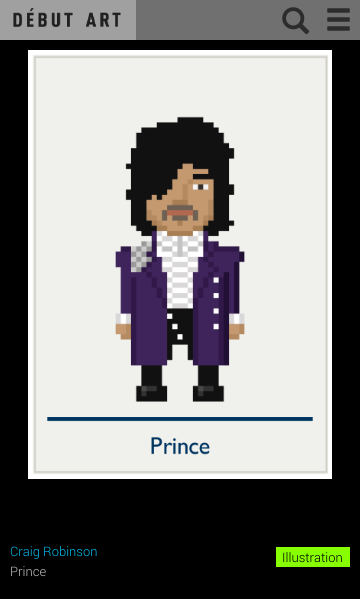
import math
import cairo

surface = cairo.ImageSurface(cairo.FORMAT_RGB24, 360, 599)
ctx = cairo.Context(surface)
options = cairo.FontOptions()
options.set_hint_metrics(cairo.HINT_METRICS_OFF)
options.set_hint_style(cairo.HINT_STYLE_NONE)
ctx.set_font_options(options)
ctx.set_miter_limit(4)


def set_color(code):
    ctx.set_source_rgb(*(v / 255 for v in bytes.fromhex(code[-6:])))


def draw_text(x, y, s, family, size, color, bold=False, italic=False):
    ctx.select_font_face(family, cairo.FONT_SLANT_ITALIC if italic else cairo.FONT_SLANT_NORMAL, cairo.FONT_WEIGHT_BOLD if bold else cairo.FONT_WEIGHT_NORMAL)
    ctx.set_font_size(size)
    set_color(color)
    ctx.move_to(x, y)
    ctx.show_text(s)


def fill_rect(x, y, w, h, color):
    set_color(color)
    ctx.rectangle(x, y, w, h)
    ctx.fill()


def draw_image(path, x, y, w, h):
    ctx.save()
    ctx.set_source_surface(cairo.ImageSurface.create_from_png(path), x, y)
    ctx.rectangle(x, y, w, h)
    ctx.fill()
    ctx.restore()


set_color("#000000")
ctx.paint()
fill_rect(136, 0, 224, 40, "#707070")
fill_rect(0, 0, 136, 40, "#a0a0a0")
draw_image("assets/img1.png", 13, 8, 108, 19)
draw_image("assets/img2.png", 282, 7, 28, 28)
draw_image("assets/img3.png", 327, 8, 23, 23)
draw_image("assets/img4.png", 28, 50, 304, 429)
draw_text(10, 556, "Craig Robinson", "Roboto Light", 13, "#00bbea")
fill_rect(276, 547, 74, 20, "#88ff00")
draw_text(282, 562, "Illustration", "Roboto Light", 13, "#000000")
draw_text(10, 576, "Prince", "Roboto Light", 13, "#c0c0c0")
surface.write_to_png("output.png")
